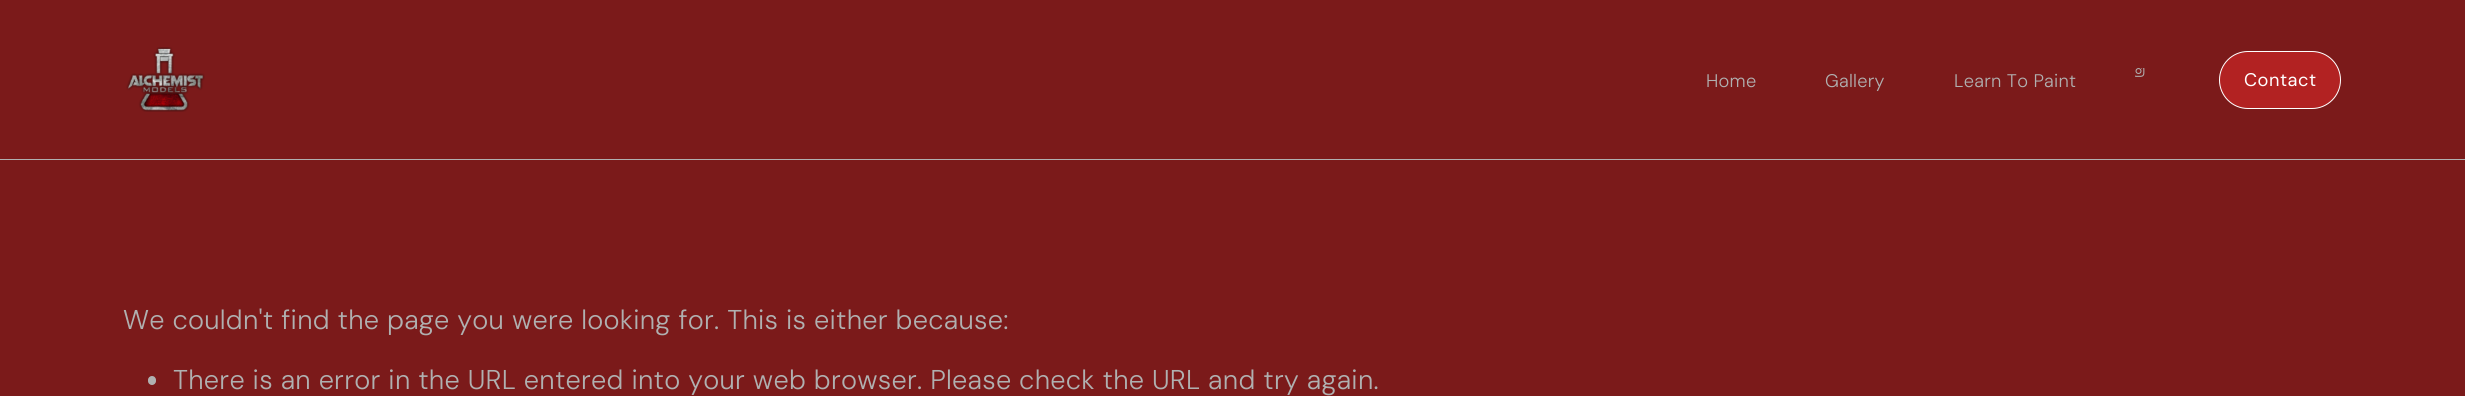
import math
import cairo

surface = cairo.ImageSurface(cairo.FORMAT_RGB24, 2465, 396)
ctx = cairo.Context(surface)
options = cairo.FontOptions()
options.set_hint_metrics(cairo.HINT_METRICS_OFF)
options.set_hint_style(cairo.HINT_STYLE_NONE)
ctx.set_font_options(options)
ctx.set_miter_limit(4)


def set_color(code):
    ctx.set_source_rgb(*(v / 255 for v in bytes.fromhex(code[-6:])))


def draw_spaced(x, y, s, letter, word):
    ctx.move_to(x, y)
    for ch in s:
        ctx.show_text(ch)
        ctx.rel_move_to(letter + word * (ch == ' '), 0)


def fill_rect(x, y, w, h, color):
    set_color(color)
    ctx.rectangle(x, y, w, h)
    ctx.fill()


def rounded_rect(x, y, w, h, r):
    ctx.new_sub_path()
    for i, (u, v) in enumerate([(x + w - r, y + h - r), (x + r, y + h - r), (x + r, y + r), (x + w - r, y + r)]):
        ctx.arc(u, v, r, i * math.pi / 2, (i + 1) * math.pi / 2)
    ctx.close_path()


def draw_image(path, x, y, w, h):
    ctx.save()
    ctx.set_source_surface(cairo.ImageSurface.create_from_png(path), x, y)
    ctx.rectangle(x, y, w, h)
    ctx.fill()
    ctx.restore()


set_color("#7b1a1a")
ctx.paint()
draw_image("assets/img1.png", 126, 47, 79, 65)
ctx.select_font_face("DM Sans Light")
ctx.set_font_size(18.25)
set_color("#b0b0b0")
draw_spaced(1706, 87, "Home", 0.25, 0)
draw_spaced(1825, 87, "Gallery", 0.25, 0)
draw_spaced(1954, 87, "Learn To Paint", 0.25, 0)
draw_image("assets/img2.png", 2135, 68, 10, 9)
set_color("#b22222")
rounded_rect(2219.5, 51.5, 121, 57, 28.5)
ctx.fill_preserve()
set_color("#ffffff")
ctx.set_line_width(1)
ctx.stroke()
ctx.select_font_face("DM Sans")
draw_spaced(2244, 86, "Contact", 0.5, 0)
fill_rect(0, 159, 2465, 1, "#b0b0b0")
ctx.select_font_face("DM Sans Light")
ctx.set_font_size(27.15)
draw_spaced(123, 329, "We couldn't find the page you were looking for. This is either because:", 0.27, 0)
rounded_rect(148, 376, 8, 9, 4)
ctx.fill()
draw_spaced(173, 389, "There is an error in the URL entered into your web browser. Please check the URL and try again.", 0.27, 0)
surface.write_to_png("output.png")
